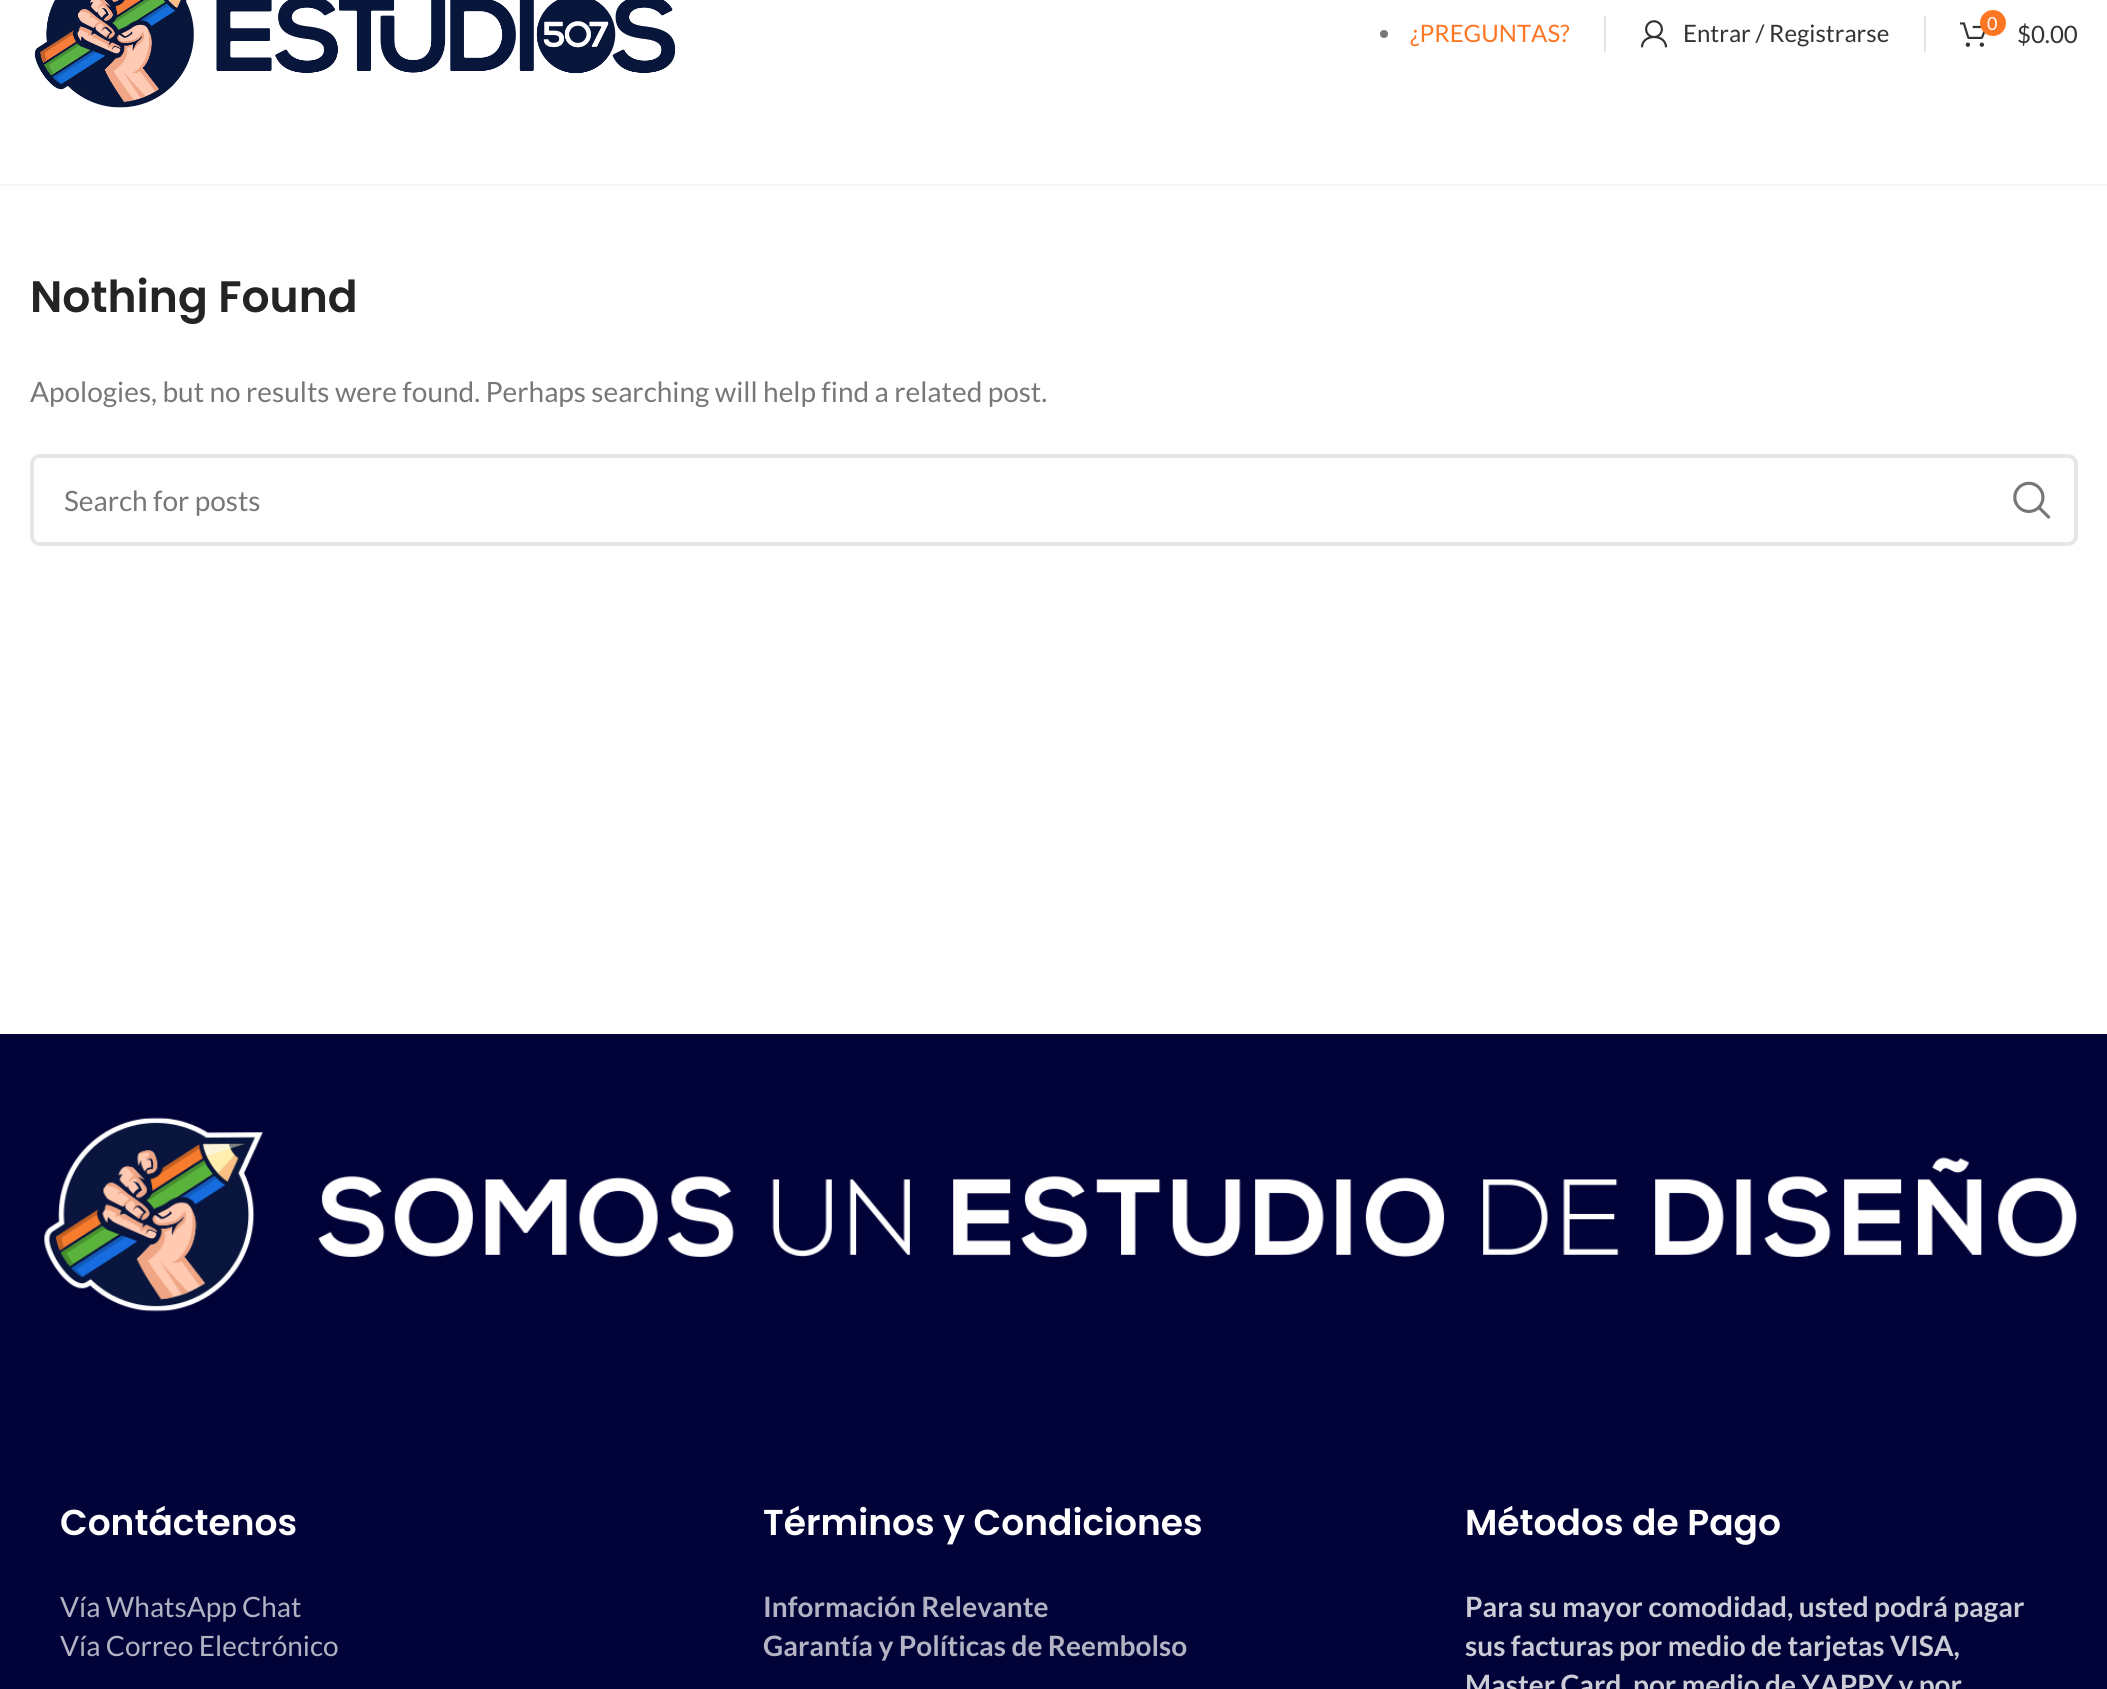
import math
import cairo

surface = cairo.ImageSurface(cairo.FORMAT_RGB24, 2107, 1689)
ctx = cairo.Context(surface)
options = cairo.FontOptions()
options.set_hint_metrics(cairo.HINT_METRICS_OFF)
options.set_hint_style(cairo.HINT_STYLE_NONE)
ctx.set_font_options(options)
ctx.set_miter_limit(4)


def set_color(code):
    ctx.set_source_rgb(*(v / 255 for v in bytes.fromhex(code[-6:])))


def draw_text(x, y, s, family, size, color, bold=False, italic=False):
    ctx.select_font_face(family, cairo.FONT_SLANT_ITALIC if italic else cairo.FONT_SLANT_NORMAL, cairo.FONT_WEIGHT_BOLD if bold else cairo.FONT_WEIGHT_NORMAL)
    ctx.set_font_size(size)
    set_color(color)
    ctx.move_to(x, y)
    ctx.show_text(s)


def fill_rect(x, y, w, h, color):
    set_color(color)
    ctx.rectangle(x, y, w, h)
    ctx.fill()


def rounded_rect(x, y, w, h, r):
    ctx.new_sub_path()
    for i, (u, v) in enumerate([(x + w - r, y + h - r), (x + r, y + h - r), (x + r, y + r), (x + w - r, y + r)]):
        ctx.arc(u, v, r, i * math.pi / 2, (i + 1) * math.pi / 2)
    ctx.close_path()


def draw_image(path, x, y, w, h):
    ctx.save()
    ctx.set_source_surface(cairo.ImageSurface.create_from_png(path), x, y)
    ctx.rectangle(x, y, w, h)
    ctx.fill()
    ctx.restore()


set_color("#ffffff")
ctx.paint()
fill_rect(0, 184, 2107, 2, "#f5f5f5")
draw_image("assets/img1.png", 34, 0, 642, 108)
set_color("#777777")
ctx.arc(1384, 34, 4, 0, 2 * math.pi)
ctx.fill()
draw_text(1410, 42, "¿PREGUNTAS?", "Lato", 24, "#fd7624")
fill_rect(1604, 16, 2, 36, "#e4e4e4")
draw_image("assets/img2.png", 1640, 20, 28, 28)
draw_text(1683, 42, "Entrar / Registrarse", "Lato", 24, "#333333")
fill_rect(1924, 16, 2, 36, "#e4e4e4")
draw_image("assets/img3.png", 1960, 22, 25, 25)
set_color("#fd7624")
ctx.arc(1993, 23, 13, 0, 2 * math.pi)
ctx.fill()
draw_text(1987, 30, "0", "Lato", 18, "#ffffff")
draw_text(2017, 43, "$0.00", "Lato", 24, "#333333")
draw_text(30, 312, "Nothing Found", "Poppins SemiBold", 44, "#242424")
draw_text(30, 402, "Apologies, but no results were found. Perhaps searching will help find a related post.", "Lato", 28, "#777777")
rounded_rect(32, 456, 2044, 88, 8)
set_color("#e6e6e6")
ctx.set_line_width(4)
ctx.stroke()
draw_text(64, 511, "Search for posts", "Lato", 28, "#777777")
draw_image("assets/img4.png", 2013, 481, 38, 38)
fill_rect(0, 1034, 2107, 655, "#010238")
draw_image("assets/img5.png", 44, 1117, 2033, 195)
draw_text(60, 1535, "Contáctenos", "Poppins SemiBold", 36, "#ffffff")
draw_text(60, 1617, "Vía WhatsApp Chat", "Lato", 28, "#b3b3c3")
draw_text(60, 1656, "Vía Correo Electrónico", "Lato", 28, "#b3b3c3")
draw_text(763, 1535, "Términos y Condiciones", "Poppins SemiBold", 36, "#ffffff")
draw_text(763, 1617, "Información Relevante", "Lato", 28, "#b3b3c3", bold=True)
draw_text(763, 1656, "Garantía y Políticas de Reembolso", "Lato", 28, "#b3b3c3", bold=True)
draw_text(1465, 1535, "Métodos de Pago", "Poppins SemiBold", 36, "#ffffff")
draw_text(1465, 1617, "Para su mayor comodidad, usted podrá pagar", "Lato", 28, "#ccccd7", bold=True)
draw_text(1465, 1656, "sus facturas por medio de tarjetas VISA,", "Lato", 28, "#ccccd7", bold=True)
draw_text(1465, 1695, "Master Card, por medio de YAPPY y por", "Lato", 28, "#ccccd7", bold=True)
surface.write_to_png("output.png")
